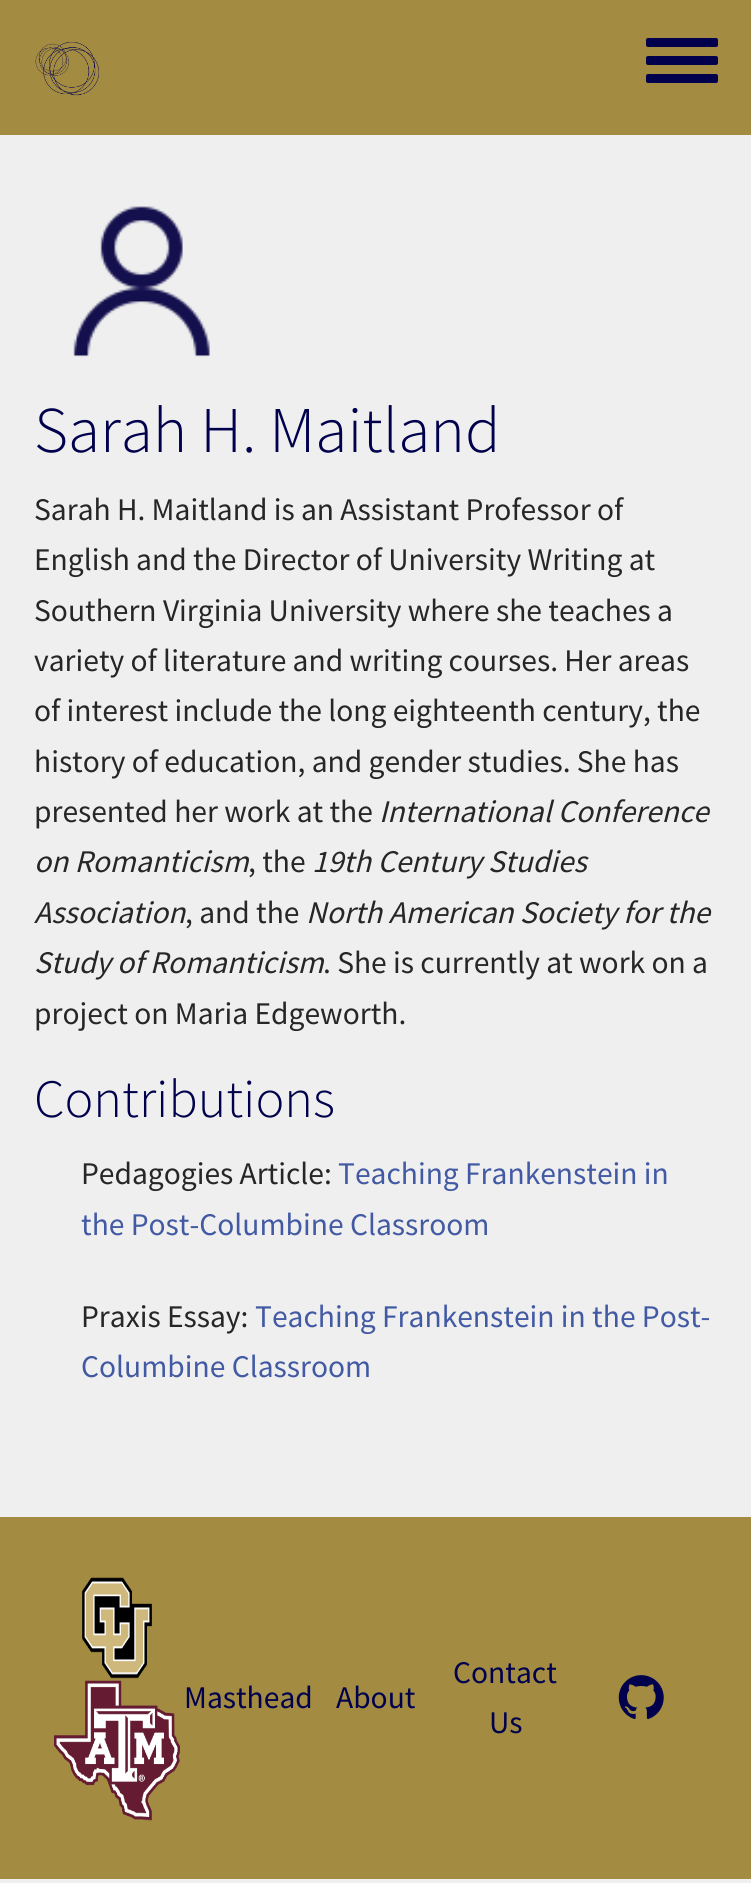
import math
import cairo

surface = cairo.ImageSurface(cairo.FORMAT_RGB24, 751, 1883)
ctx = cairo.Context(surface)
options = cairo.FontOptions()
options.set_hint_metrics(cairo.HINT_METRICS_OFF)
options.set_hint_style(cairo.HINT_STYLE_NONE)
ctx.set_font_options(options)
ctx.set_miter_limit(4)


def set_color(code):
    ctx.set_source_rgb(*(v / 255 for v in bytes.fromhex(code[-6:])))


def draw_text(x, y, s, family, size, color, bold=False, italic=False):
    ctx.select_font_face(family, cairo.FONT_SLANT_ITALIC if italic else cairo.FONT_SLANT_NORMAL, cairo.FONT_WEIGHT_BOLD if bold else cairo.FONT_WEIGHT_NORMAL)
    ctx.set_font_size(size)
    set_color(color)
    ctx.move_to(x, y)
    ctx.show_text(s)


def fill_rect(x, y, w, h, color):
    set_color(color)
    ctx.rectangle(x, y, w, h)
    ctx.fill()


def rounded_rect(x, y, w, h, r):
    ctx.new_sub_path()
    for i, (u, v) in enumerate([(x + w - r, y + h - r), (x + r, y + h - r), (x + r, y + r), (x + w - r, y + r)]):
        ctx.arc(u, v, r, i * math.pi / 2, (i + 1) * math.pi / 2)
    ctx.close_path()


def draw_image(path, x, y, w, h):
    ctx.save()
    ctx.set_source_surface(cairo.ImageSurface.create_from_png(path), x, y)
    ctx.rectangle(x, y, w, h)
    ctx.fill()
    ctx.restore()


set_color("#efefef")
ctx.paint()
fill_rect(0, 0, 751, 135, "#a38c42")
draw_image("assets/img1.png", 35, 42, 64, 54)
set_color("#00004d")
rounded_rect(646, 56, 72, 9, 2)
ctx.fill()
rounded_rect(646, 38, 72, 9, 2)
ctx.fill()
rounded_rect(646, 74, 72, 9, 2)
ctx.fill()
draw_image("assets/img2.png", 73, 206, 137, 151)
draw_text(34, 452, "Sarah H. Maitland", "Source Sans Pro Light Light", 65.25, "#00004d")
draw_text(34, 520, "Sarah H. Maitland is an Assistant Professor of", "Source Sans Pro", 31.5, "#262626")
draw_text(34, 570, "English and the Director of University Writing at", "Source Sans Pro", 31.5, "#262626")
draw_text(34, 621, "Southern Virginia University where she teaches a", "Source Sans Pro", 31.5, "#262626")
draw_text(34, 671, "variety of literature and writing courses. Her areas", "Source Sans Pro", 31.5, "#262626")
draw_text(34, 721, "of interest include the long eighteenth century, the", "Source Sans Pro", 31.5, "#262626")
draw_text(34, 772, "history of education, and gender studies. She has", "Source Sans Pro", 31.5, "#262626")
draw_text(34, 822, "presented her work at the", "Source Sans Pro", 31.5, "#262626")
draw_text(379, 822, "International Conference", "Source Sans Pro", 31.5, "#262626", italic=True)
draw_text(34, 872, "on Romanticism", "Source Sans Pro", 31.5, "#262626", italic=True)
draw_text(248, 872, ", the", "Source Sans Pro", 31.5, "#262626")
draw_text(312, 872, "19th Century Studies", "Source Sans Pro", 31.5, "#262626", italic=True)
draw_text(34, 923, "Association", "Source Sans Pro", 31.5, "#262626", italic=True)
draw_text(185, 923, ", and the", "Source Sans Pro", 31.5, "#262626")
draw_text(306, 923, "North American Society for the", "Source Sans Pro", 31.5, "#262626", italic=True)
draw_text(34, 973, "Study of Romanticism", "Source Sans Pro", 31.5, "#262626", italic=True)
draw_text(323, 973, ". She is currently at work on a", "Source Sans Pro", 31.5, "#262626")
draw_text(34, 1024, "project on Maria Edgeworth.", "Source Sans Pro", 31.5, "#262626")
draw_text(34, 1117, "Contributions", "Source Sans Pro Light Light", 54, "#00004d")
draw_text(81, 1184, "Pedagogies Article:", "Source Sans Pro", 31.5, "#262626")
draw_text(338, 1184, "Teaching Frankenstein in", "Source Sans Pro", 31.5, "#4259a3")
draw_text(81, 1235, "the Post-Columbine Classroom", "Source Sans Pro", 31.5, "#4259a3")
draw_text(81, 1327, "Praxis Essay:", "Source Sans Pro", 31.5, "#262626")
draw_text(255, 1327, "Teaching Frankenstein in the Post-", "Source Sans Pro", 31.5, "#4259a3")
draw_text(81, 1377, "Columbine Classroom", "Source Sans Pro", 31.5, "#4259a3")
fill_rect(0, 1517, 751, 362, "#a38c42")
draw_image("assets/img3.png", 82, 1577, 70, 102)
draw_image("assets/img4.png", 54, 1680, 126, 141)
draw_text(184, 1708, "Masthead", "Source Sans Pro", 31.5, "#00004d")
draw_text(336, 1708, "About", "Source Sans Pro", 31.5, "#00004d")
draw_text(453, 1683, "Contact", "Source Sans Pro", 31.5, "#00004d")
draw_text(489, 1733, "Us", "Source Sans Pro", 31.5, "#00004d")
draw_image("assets/img5.png", 618, 1675, 46, 44)
surface.write_to_png("output.png")
